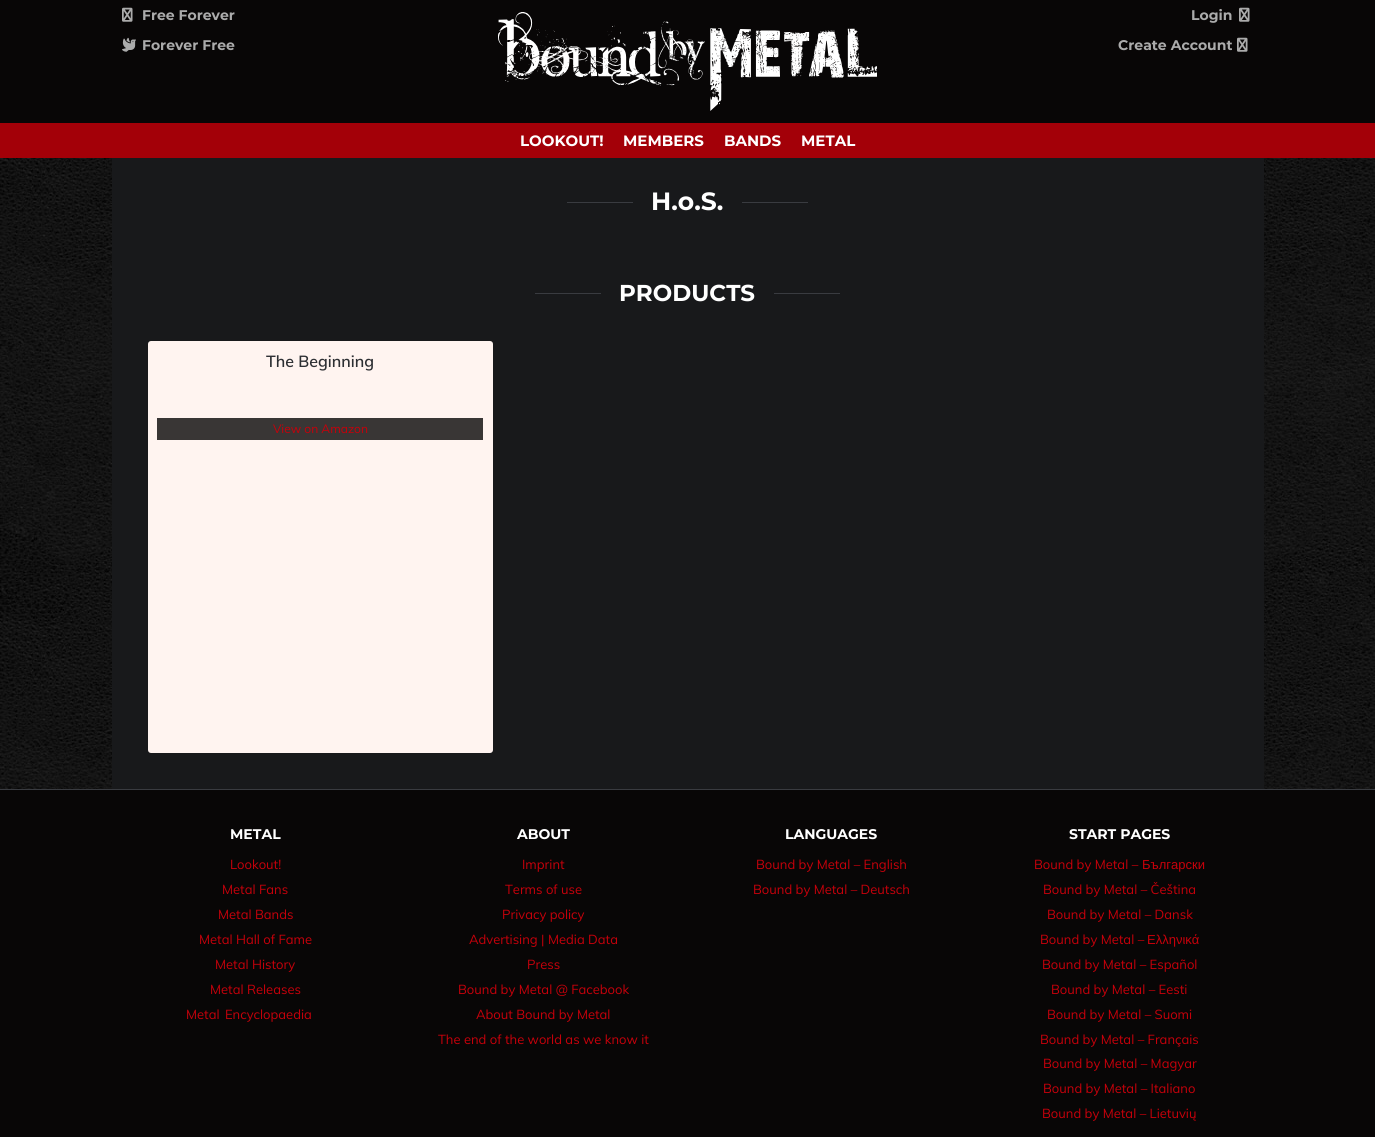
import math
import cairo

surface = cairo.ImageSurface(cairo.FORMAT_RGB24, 1375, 1137)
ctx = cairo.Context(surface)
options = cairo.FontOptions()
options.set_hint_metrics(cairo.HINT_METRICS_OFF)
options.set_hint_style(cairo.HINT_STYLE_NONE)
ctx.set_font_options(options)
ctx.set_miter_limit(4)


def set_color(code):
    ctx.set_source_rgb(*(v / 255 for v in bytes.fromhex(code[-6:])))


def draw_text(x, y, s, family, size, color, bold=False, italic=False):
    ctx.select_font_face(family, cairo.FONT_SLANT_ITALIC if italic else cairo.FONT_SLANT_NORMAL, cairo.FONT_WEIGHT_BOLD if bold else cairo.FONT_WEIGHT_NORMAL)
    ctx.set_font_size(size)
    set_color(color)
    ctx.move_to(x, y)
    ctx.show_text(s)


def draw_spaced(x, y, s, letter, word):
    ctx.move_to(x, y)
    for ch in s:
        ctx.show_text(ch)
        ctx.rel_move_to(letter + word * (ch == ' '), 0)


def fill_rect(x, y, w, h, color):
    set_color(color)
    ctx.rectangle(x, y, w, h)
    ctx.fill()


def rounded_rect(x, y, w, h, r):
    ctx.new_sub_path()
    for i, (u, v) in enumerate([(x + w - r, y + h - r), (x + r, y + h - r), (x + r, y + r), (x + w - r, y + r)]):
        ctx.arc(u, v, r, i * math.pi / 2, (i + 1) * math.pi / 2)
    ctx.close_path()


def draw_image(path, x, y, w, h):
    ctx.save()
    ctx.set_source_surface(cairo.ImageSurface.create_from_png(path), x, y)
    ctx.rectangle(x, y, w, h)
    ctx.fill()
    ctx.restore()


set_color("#ffffff")
ctx.paint()
draw_image("assets/img1.png", 0, 158, 1375, 631)
fill_rect(0, 0, 1375, 123, "#080606")
draw_image("assets/img2.png", 122, 7, 11, 15)
draw_text(142, 20, "Free Forever", "Montserrat", 14, "#ababab", bold=True)
draw_image("assets/img3.png", 122, 37, 14, 15)
draw_text(142, 50, "Forever Free", "Montserrat", 14, "#ababab", bold=True)
draw_image("assets/img4.png", 498, 12, 379, 99)
draw_text(1191, 20, "Login", "Montserrat", 14, "#ababab", bold=True)
draw_image("assets/img2.png", 1239, 7, 11, 15)
draw_text(1118, 50, "Create Account", "Montserrat", 14, "#ababab", bold=True)
draw_image("assets/img2.png", 1237, 37, 11, 15)
fill_rect(0, 123, 1375, 35, "#a30008")
draw_text(520, 146, "LOOKOUT!", "Montserrat", 15, "#ffffff", bold=True)
draw_text(623, 146, "MEMBERS", "Montserrat", 15, "#ffffff", bold=True)
draw_text(724, 146, "BANDS", "Montserrat", 15, "#ffffff", bold=True)
draw_text(801, 146, "METAL", "Montserrat", 15, "#ffffff", bold=True)
fill_rect(112, 158, 1152, 631, "#18191b")
fill_rect(567, 202, 66, 1, "#393b40")
draw_text(651, 210, "H.o.S.", "Montserrat", 25, "#ffffff", bold=True)
fill_rect(742, 202, 66, 1, "#393b40")
fill_rect(535, 293, 66, 1, "#393b40")
draw_text(619, 301, "PRODUCTS", "Montserrat", 23, "#ffffff", bold=True)
fill_rect(774, 293, 66, 1, "#393b40")
set_color("#fff4f0")
rounded_rect(148, 341, 345, 412, 3)
ctx.fill()
draw_text(266, 367, "The Beginning", "Muli SemiBold", 16, "#2d2f33")
fill_rect(157, 418, 326, 22, "#393635")
draw_text(273, 433, "View on Amazon", "Muli", 12, "#c7000a")
fill_rect(0, 790, 1375, 347, "#080606")
fill_rect(0, 789, 1375, 1, "#393b40")
draw_text(230, 839, "METAL", "Montserrat", 14, "#ffffff", bold=True)
draw_text(230, 869, "Lookout!", "Muli", 13, "#c7000a")
draw_text(222, 894, "Metal Fans", "Muli", 13, "#c7000a")
draw_text(218, 919, "Metal Bands", "Muli", 13, "#c7000a")
draw_text(199, 944, "Metal Hall of Fame", "Muli", 13, "#c7000a")
draw_text(215, 969, "Metal History", "Muli", 13, "#c7000a")
draw_text(210, 994, "Metal Releases", "Muli", 13, "#c7000a")
draw_spaced(186, 1019, "Metal Encyclopaedia ", 0, 2)
draw_text(517, 839, "ABOUT", "Montserrat", 14, "#ffffff", bold=True)
draw_text(522, 869, "Imprint", "Muli", 13, "#c7000a")
draw_text(505, 894, "Terms of use", "Muli", 13, "#c7000a")
draw_text(502, 919, "Privacy policy", "Muli", 13, "#c7000a")
draw_text(469, 944, "Advertising | Media Data", "Muli", 13, "#c7000a")
draw_text(527, 969, "Press", "Muli", 13, "#c7000a")
draw_text(458, 994, "Bound by Metal @ Facebook", "Muli", 13, "#c7000a")
draw_text(476, 1019, "About Bound by Metal", "Muli", 13, "#c7000a")
draw_text(438, 1044, "The end of the world as we know it", "Muli", 13, "#c7000a")
draw_text(785, 839, "LANGUAGES", "Montserrat", 14, "#ffffff", bold=True)
draw_text(756, 869, "Bound by Metal – English", "Muli", 13, "#c7000a")
draw_text(753, 894, "Bound by Metal – Deutsch", "Muli", 13, "#c7000a")
draw_text(1069, 839, "START PAGES", "Montserrat", 14, "#ffffff", bold=True)
draw_text(1034, 869, "Bound by Metal –", "Muli", 13, "#c7000a")
draw_text(1142, 869, "Български", "Liberation Sans", 13, "#c7000a")
draw_text(1043, 894, "Bound by Metal – Čeština", "Muli", 13, "#c7000a")
draw_text(1047, 919, "Bound by Metal – Dansk", "Muli", 13, "#c7000a")
draw_text(1040, 944, "Bound by Metal –", "Muli", 13, "#c7000a")
draw_text(1147, 944, "Ελληνικά", "Liberation Sans", 13, "#c7000a")
draw_text(1042, 969, "Bound by Metal – Español", "Muli", 13, "#c7000a")
draw_text(1051, 994, "Bound by Metal – Eesti", "Muli", 13, "#c7000a")
draw_text(1047, 1019, "Bound by Metal – Suomi", "Muli", 13, "#c7000a")
draw_text(1040, 1044, "Bound by Metal – Français", "Muli", 13, "#c7000a")
draw_text(1043, 1068, "Bound by Metal – Magyar", "Muli", 13, "#c7000a")
draw_text(1043, 1093, "Bound by Metal – Italiano", "Muli", 13, "#c7000a")
draw_text(1042, 1118, "Bound by Metal – Lietuvių", "Muli", 13, "#c7000a")
surface.write_to_png("output.png")
